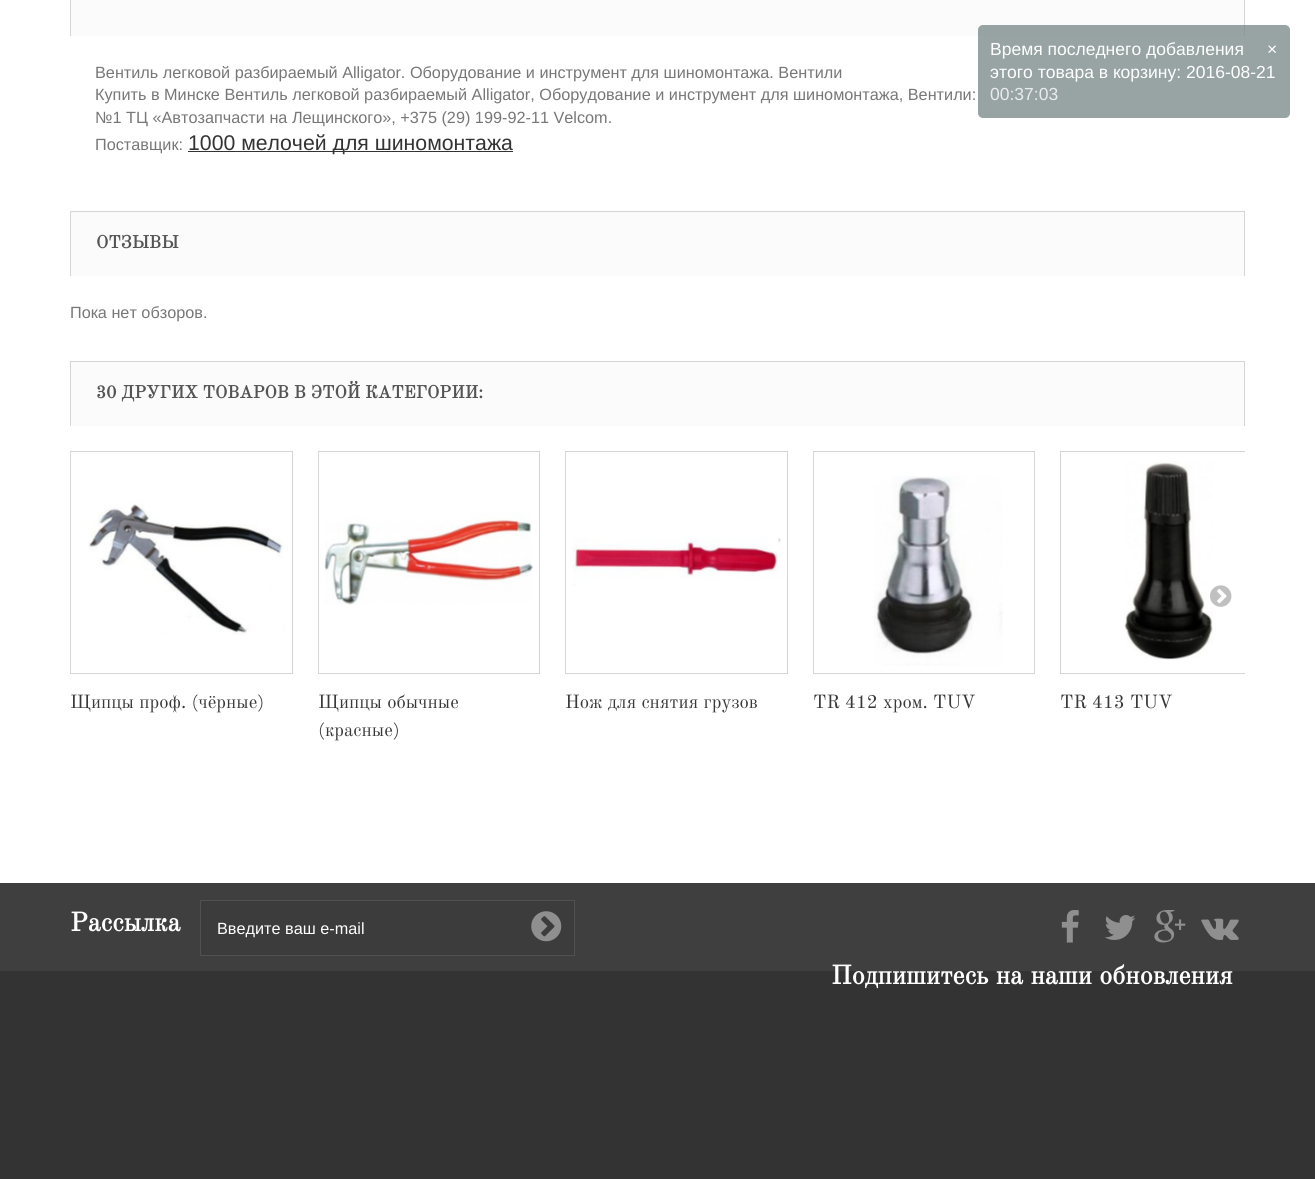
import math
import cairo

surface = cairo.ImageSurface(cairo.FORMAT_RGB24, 1315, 1179)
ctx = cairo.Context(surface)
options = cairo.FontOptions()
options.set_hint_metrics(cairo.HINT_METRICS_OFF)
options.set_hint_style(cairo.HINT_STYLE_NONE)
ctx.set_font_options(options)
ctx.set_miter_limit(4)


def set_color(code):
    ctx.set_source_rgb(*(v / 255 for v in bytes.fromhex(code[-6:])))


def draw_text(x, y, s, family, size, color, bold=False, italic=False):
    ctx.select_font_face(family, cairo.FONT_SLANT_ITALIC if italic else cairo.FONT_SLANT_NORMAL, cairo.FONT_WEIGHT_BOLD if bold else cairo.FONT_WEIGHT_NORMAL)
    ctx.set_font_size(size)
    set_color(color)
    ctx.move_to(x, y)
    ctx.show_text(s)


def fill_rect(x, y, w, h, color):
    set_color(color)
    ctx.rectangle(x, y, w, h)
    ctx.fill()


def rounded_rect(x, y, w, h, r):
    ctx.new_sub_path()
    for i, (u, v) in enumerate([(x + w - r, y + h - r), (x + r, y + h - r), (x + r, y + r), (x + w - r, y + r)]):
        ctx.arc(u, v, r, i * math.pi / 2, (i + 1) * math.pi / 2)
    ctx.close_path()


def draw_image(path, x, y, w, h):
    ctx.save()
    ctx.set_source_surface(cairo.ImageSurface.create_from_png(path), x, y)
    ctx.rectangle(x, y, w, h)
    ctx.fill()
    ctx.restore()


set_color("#ffffff")
ctx.paint()
fill_rect(71, 0, 1173, 36, "#fbfbfb")
fill_rect(1244, 0, 1, 36, "#d6d4d4")
ctx.set_source_rgba(0.498, 0.549, 0.553, 0.8)
rounded_rect(978, 25, 312, 93, 5)
ctx.fill()
draw_text(990, 55, "Время последнего добавления", "Liberation Sans", 17.5, "#ffffff")
draw_text(990, 78, "этого товара в корзину: 2016-08-21", "Liberation Sans", 17.5, "#ffffff")
draw_text(990, 100, "00:37:03", "Liberation Sans", 17.5, "#e9ecec")
draw_text(1267, 55, "×", "Liberation Sans", 17.5, "#ffffff")
fill_rect(70, 0, 1, 36, "#d6d4d4")
draw_text(95, 78, "Вентиль легковой разбираемый Alligator. Оборудование и инструмент для шиномонтажа. Вентили", "Liberation Sans", 16.25, "#777777")
draw_text(95, 100, "Купить в Минске Вентиль легковой разбираемый Alligator, Оборудование и инструмент для шиномонтажа, Вентили:", "Liberation Sans", 16.25, "#777777")
draw_text(95, 123, "№1 ТЦ «Автозапчасти на Лещинского», +375 (29) 199-92-11 Velcom.", "Liberation Sans", 16.25, "#777777")
draw_text(95, 150, "Поставщик:", "Liberation Sans", 16.25, "#777777")
fill_rect(188, 151, 325, 1, "#333333")
draw_text(188, 150, "1000 мелочей для шиномонтажа", "Liberation Sans", 21.25, "#333333")
fill_rect(71, 212, 1173, 64, "#fbfbfb")
fill_rect(70, 211, 1175, 1, "#d6d4d4")
fill_rect(1244, 211, 1, 65, "#d6d4d4")
fill_rect(70, 211, 1, 65, "#d6d4d4")
draw_text(96, 248, "ОТЗЫВЫ", "Old Standard TT", 17.5, "#555454", bold=True)
draw_text(70, 318, "Пока нет обзоров.", "Liberation Sans", 16.25, "#777777")
fill_rect(71, 362, 1173, 64, "#fbfbfb")
fill_rect(70, 361, 1175, 1, "#d6d4d4")
fill_rect(1244, 361, 1, 65, "#d6d4d4")
fill_rect(70, 361, 1, 65, "#d6d4d4")
draw_text(96, 398, "30 ДРУГИХ ТОВАРОВ В ЭТОЙ КАТЕГОРИИ:", "Old Standard TT", 17.5, "#555454", bold=True)
ctx.save()
ctx.rectangle(70, 451, 1175, 358)
ctx.clip()
ctx.rectangle(1060.5, 451.5, 222, 222)
set_color("#d6d4d4")
ctx.set_line_width(1)
ctx.stroke()
ctx.restore()
draw_image("assets/img6.png", 1124, 461, 89, 199)
draw_image("assets/img1.png", 1210, 585, 22, 22)
ctx.rectangle(70.5, 451.5, 222, 222)
set_color("#d6d4d4")
ctx.set_line_width(1)
ctx.stroke()
draw_image("assets/img2.png", 88, 499, 197, 136)
draw_text(70, 708, "Щипцы проф. (чёрные)", "Old Standard TT", 18.75, "#3a3939")
ctx.rectangle(318.5, 451.5, 221, 222)
set_color("#d6d4d4")
ctx.stroke()
draw_image("assets/img3.png", 324, 511, 209, 94)
draw_text(318, 708, "Щипцы обычные", "Old Standard TT", 18.75, "#3a3939")
draw_text(318, 736, "(красные)", "Old Standard TT", 18.75, "#3a3939")
ctx.rectangle(565.5, 451.5, 222, 222)
set_color("#d6d4d4")
ctx.stroke()
draw_image("assets/img4.png", 572, 538, 209, 48)
draw_text(565, 708, "Нож для снятия грузов", "Old Standard TT", 18.75, "#3a3939")
ctx.rectangle(813.5, 451.5, 221, 222)
set_color("#d6d4d4")
ctx.stroke()
draw_image("assets/img5.png", 874, 476, 129, 190)
draw_text(813, 708, "TR 412 хром. TUV", "Old Standard TT", 18.75, "#3a3939")
draw_text(1060, 708, "TR 413 TUV", "Old Standard TT", 18.75, "#3a3939")
fill_rect(0, 971, 1315, 208, "#333333")
fill_rect(0, 883, 1315, 88, "#3f3f3f")
draw_text(70, 931, "Рассылка", "Old Standard TT", 26.25, "#ffffff", bold=True)
set_color("#3c3c3c")
ctx.rectangle(200.5, 900.5, 374, 55)
ctx.fill_preserve()
set_color("#515151")
ctx.stroke()
draw_text(217, 934, "Введите ваш e-mail", "Liberation Sans", 16.25, "#ffffff")
draw_image("assets/img7.png", 531, 911, 31, 31)
draw_image("assets/img8.png", 1061, 910, 18, 33)
draw_image("assets/img9.png", 1105, 915, 31, 25)
draw_image("assets/img10.png", 1154, 910, 32, 33)
draw_image("assets/img11.png", 1201, 918, 38, 22)
draw_text(831, 984, "Подпишитесь на наши обновления", "Old Standard TT", 26.25, "#ffffff", bold=True)
surface.write_to_png("output.png")
